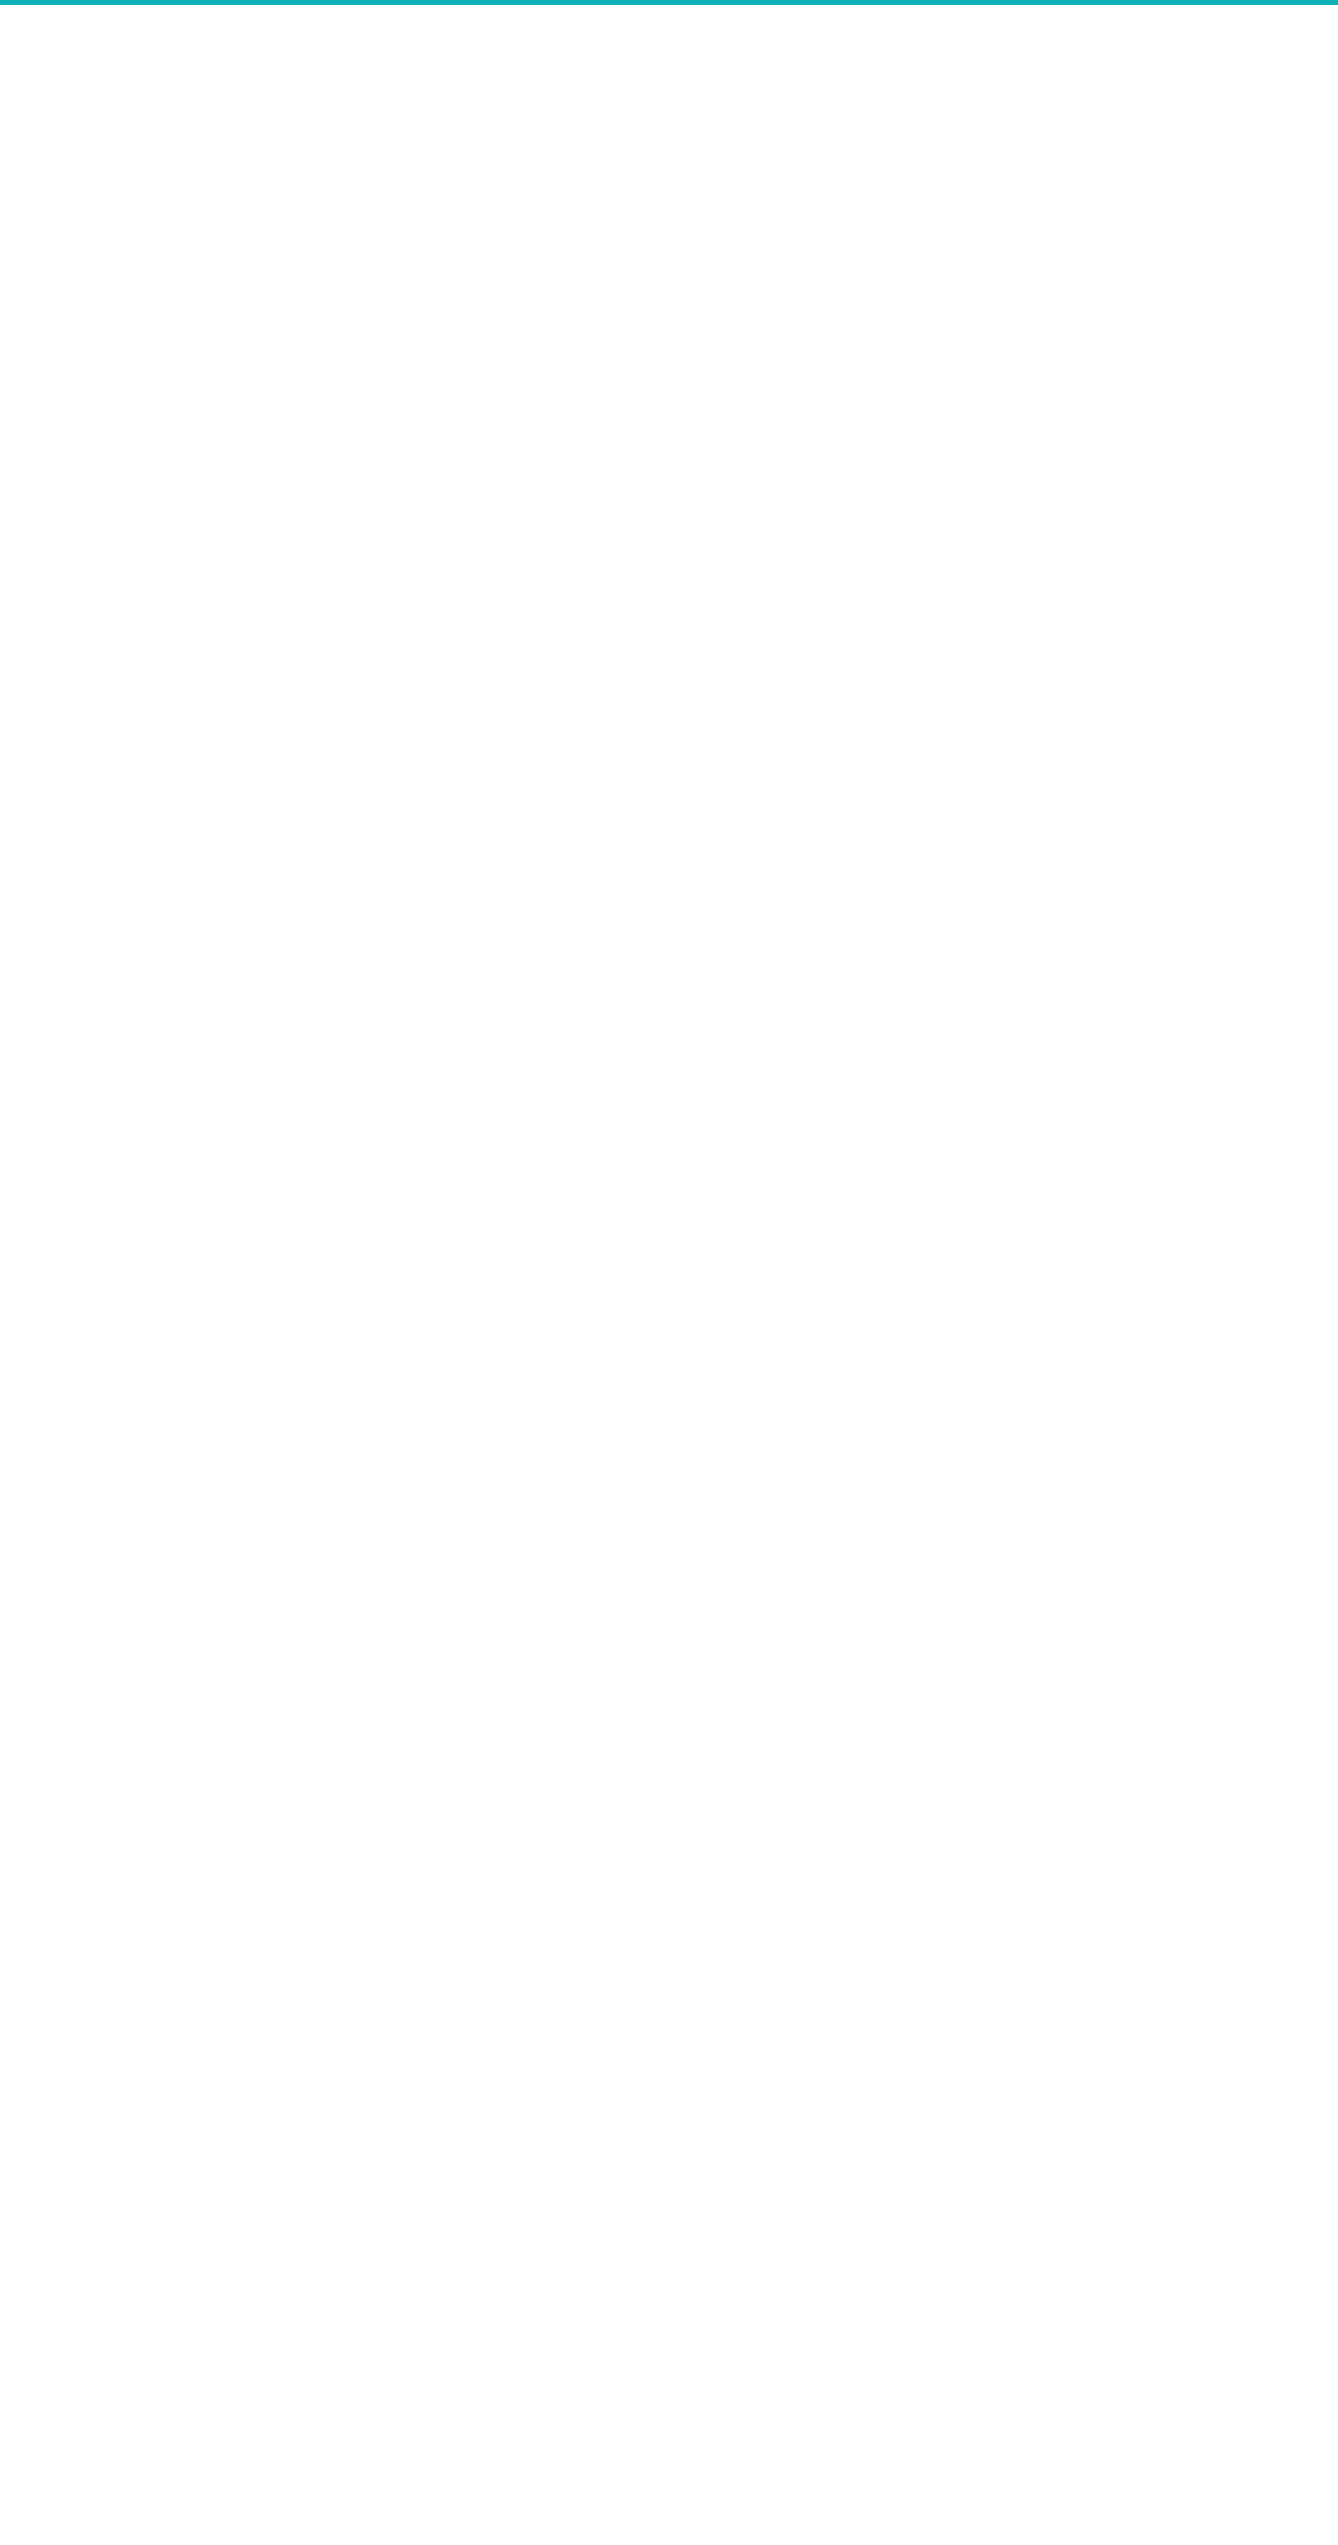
import math
import cairo

surface = cairo.ImageSurface(cairo.FORMAT_RGB24, 1338, 2545)
ctx = cairo.Context(surface)
options = cairo.FontOptions()
options.set_hint_metrics(cairo.HINT_METRICS_OFF)
options.set_hint_style(cairo.HINT_STYLE_NONE)
ctx.set_font_options(options)
ctx.set_miter_limit(4)


def set_color(code):
    ctx.set_source_rgb(*(v / 255 for v in bytes.fromhex(code[-6:])))


def fill_rect(x, y, w, h, color):
    set_color(color)
    ctx.rectangle(x, y, w, h)
    ctx.fill()


set_color("#ffffff")
ctx.paint()
fill_rect(0, 0, 1338, 5, "#10b0b8")
surface.write_to_png("output.png")
